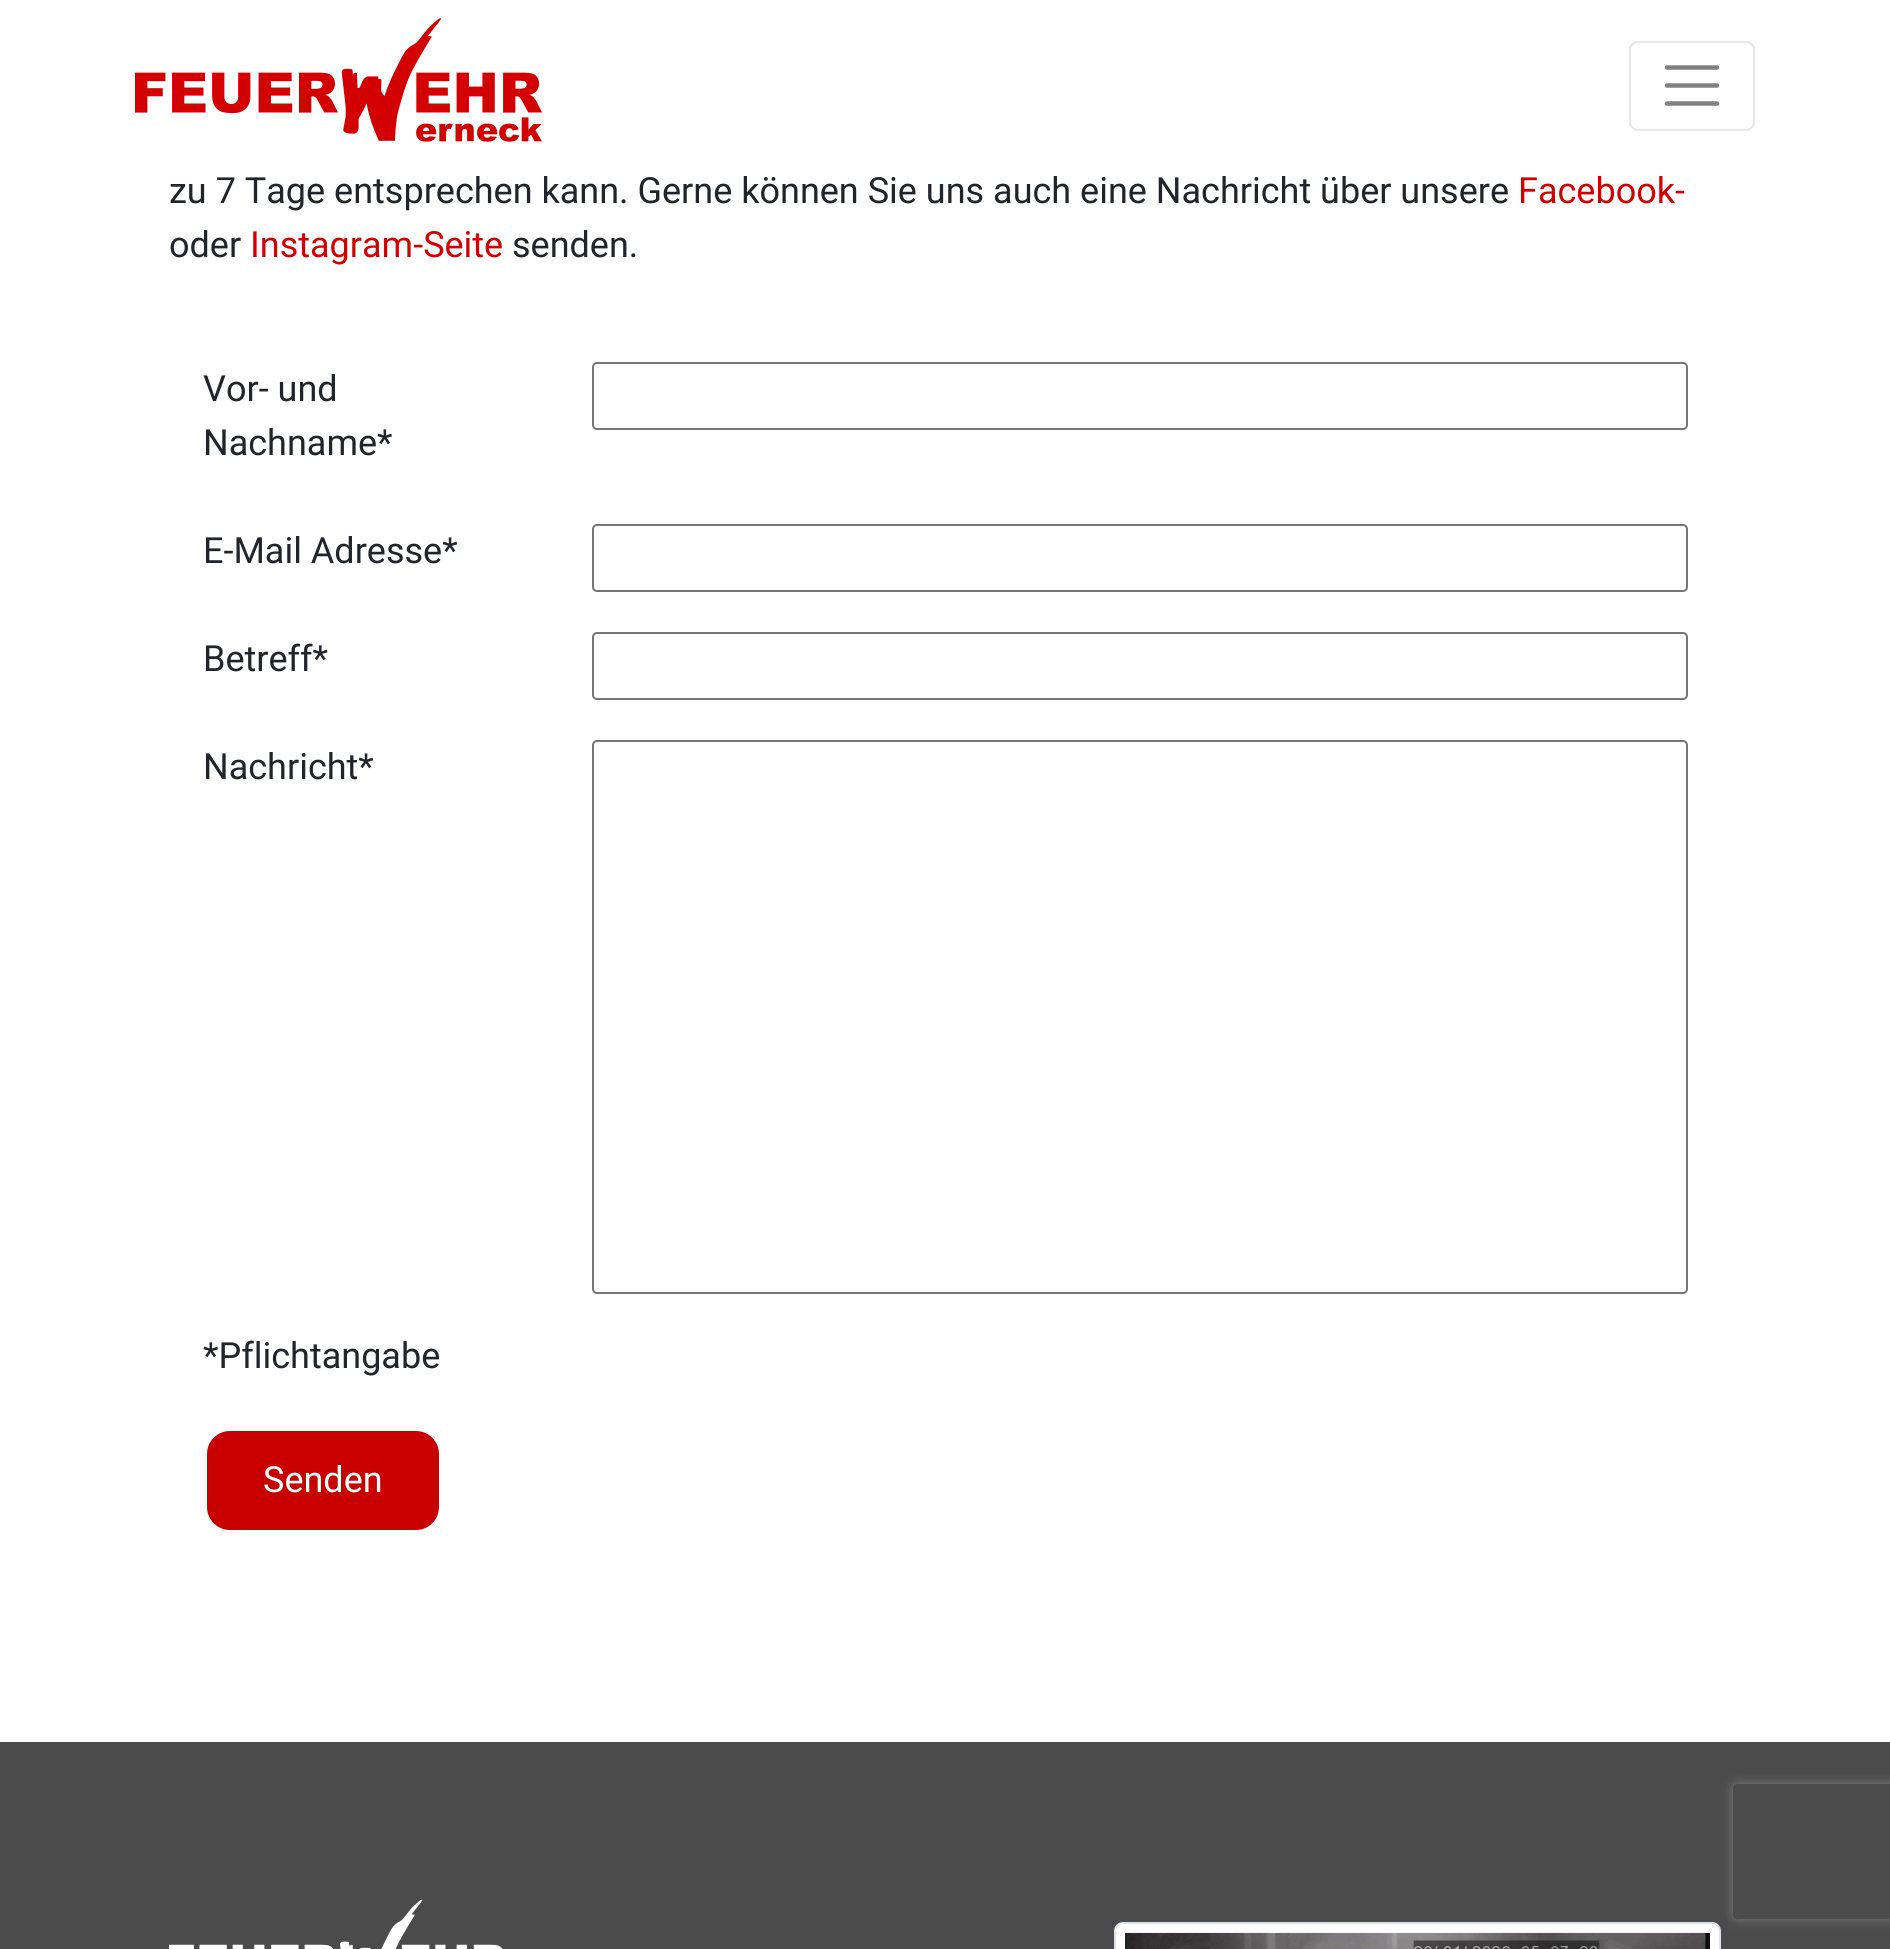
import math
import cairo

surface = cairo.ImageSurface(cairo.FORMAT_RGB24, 1890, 1949)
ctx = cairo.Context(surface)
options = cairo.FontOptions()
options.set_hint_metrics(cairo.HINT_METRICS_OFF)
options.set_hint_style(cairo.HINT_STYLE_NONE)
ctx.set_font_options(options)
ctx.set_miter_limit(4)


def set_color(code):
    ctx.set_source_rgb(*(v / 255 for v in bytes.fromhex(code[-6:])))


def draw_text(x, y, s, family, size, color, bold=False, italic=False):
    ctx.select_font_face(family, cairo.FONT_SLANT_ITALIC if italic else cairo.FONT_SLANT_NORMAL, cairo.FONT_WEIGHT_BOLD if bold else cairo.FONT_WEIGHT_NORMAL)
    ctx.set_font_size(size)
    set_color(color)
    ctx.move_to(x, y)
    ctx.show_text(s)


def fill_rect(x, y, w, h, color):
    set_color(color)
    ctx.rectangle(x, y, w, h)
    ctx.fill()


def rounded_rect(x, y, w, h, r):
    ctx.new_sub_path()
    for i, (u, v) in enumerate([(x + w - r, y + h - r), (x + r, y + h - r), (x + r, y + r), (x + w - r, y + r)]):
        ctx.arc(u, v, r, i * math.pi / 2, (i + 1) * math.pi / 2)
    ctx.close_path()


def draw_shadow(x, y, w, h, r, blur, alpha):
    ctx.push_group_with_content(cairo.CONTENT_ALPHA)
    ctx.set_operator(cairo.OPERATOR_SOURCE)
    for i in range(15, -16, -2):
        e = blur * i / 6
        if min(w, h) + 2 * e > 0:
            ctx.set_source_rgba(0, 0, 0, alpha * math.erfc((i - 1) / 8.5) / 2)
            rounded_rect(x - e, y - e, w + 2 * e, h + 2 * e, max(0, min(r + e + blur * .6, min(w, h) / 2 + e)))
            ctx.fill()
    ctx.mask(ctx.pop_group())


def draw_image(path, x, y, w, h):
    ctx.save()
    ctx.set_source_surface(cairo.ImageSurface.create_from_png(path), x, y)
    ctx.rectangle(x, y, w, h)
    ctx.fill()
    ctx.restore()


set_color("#ffffff")
ctx.paint()
draw_image("assets/img1.png", 135, 18, 407, 124)
rounded_rect(1630, 42, 124, 88, 8)
set_color("#e6e6e6")
ctx.stroke()
ctx.new_path()
ctx.move_to(1667, 67.5)
ctx.line_to(1717, 67.5)
ctx.move_to(1667, 85.5)
ctx.line_to(1717, 85.5)
ctx.move_to(1667, 103.5)
ctx.line_to(1717, 103.5)
set_color("#808080")
ctx.set_line_width(4.5)
ctx.set_line_cap(cairo.LINE_CAP_ROUND)
ctx.stroke()
draw_text(169, 203, "zu 7 Tage entsprechen kann. Gerne können Sie uns auch eine Nachricht über unsere", "Roboto", 36, "#212529")
draw_text(1518, 203, "Facebook-", "Roboto", 36, "#d20000")
draw_text(169, 257, "oder", "Roboto", 36, "#212529")
draw_text(250, 257, "Instagram-Seite", "Roboto", 36, "#d20000")
draw_text(512, 257, "senden.", "Roboto", 36, "#212529")
draw_text(203, 401, "Vor- und", "Roboto", 36, "#212529")
draw_text(203, 455, "Nachname*", "Roboto", 36, "#212529")
rounded_rect(593, 363, 1094, 66, 4)
set_color("#767676")
ctx.set_line_width(2)
ctx.set_line_cap(cairo.LINE_CAP_BUTT)
ctx.stroke()
draw_text(203, 563, "E-Mail Adresse*", "Roboto", 36, "#212529")
rounded_rect(593, 525, 1094, 66, 4)
set_color("#767676")
ctx.stroke()
draw_text(203, 671, "Betreff*", "Roboto", 36, "#212529")
rounded_rect(593, 633, 1094, 66, 4)
set_color("#767676")
ctx.stroke()
draw_text(203, 779, "Nachricht*", "Roboto", 36, "#212529")
rounded_rect(593, 741, 1094, 552, 4)
set_color("#767676")
ctx.stroke()
draw_text(203, 1368, "*Pflichtangabe", "Roboto", 36, "#212529")
set_color("#c80000")
rounded_rect(207, 1431, 232, 99, 23)
ctx.fill()
draw_text(263, 1492, "Senden", "Roboto", 36, "#ffffff")
fill_rect(0, 1742, 1890, 207, "#4b4b4b")
draw_image("assets/img2.png", 169, 1899, 334, 50)
set_color("#ffffff")
rounded_rect(1115, 1923, 605, 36, 8)
ctx.fill_preserve()
set_color("#dee2e6")
ctx.stroke()
draw_image("assets/img3.png", 1125, 1932, 585, 17)
ctx.save()
ctx.set_fill_rule(cairo.FILL_RULE_EVEN_ODD)
ctx.new_path()
ctx.move_to(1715, 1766)
ctx.line_to(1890, 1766)
ctx.line_to(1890, 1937)
ctx.line_to(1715, 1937)
ctx.close_path()
ctx.move_to(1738, 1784)
ctx.line_to(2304, 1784)
ctx.curve_to(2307, 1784, 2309, 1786, 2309, 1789)
ctx.line_to(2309, 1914)
ctx.curve_to(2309, 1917, 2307, 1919, 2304, 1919)
ctx.line_to(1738, 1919)
ctx.curve_to(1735, 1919, 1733, 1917, 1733, 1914)
ctx.line_to(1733, 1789)
ctx.curve_to(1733, 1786, 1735, 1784, 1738, 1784)
ctx.close_path()
ctx.clip()
set_color("#808080")
draw_shadow(1733, 1784, 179, 135, 5, 5.5, 1)
ctx.restore()
surface.write_to_png("output.png")
